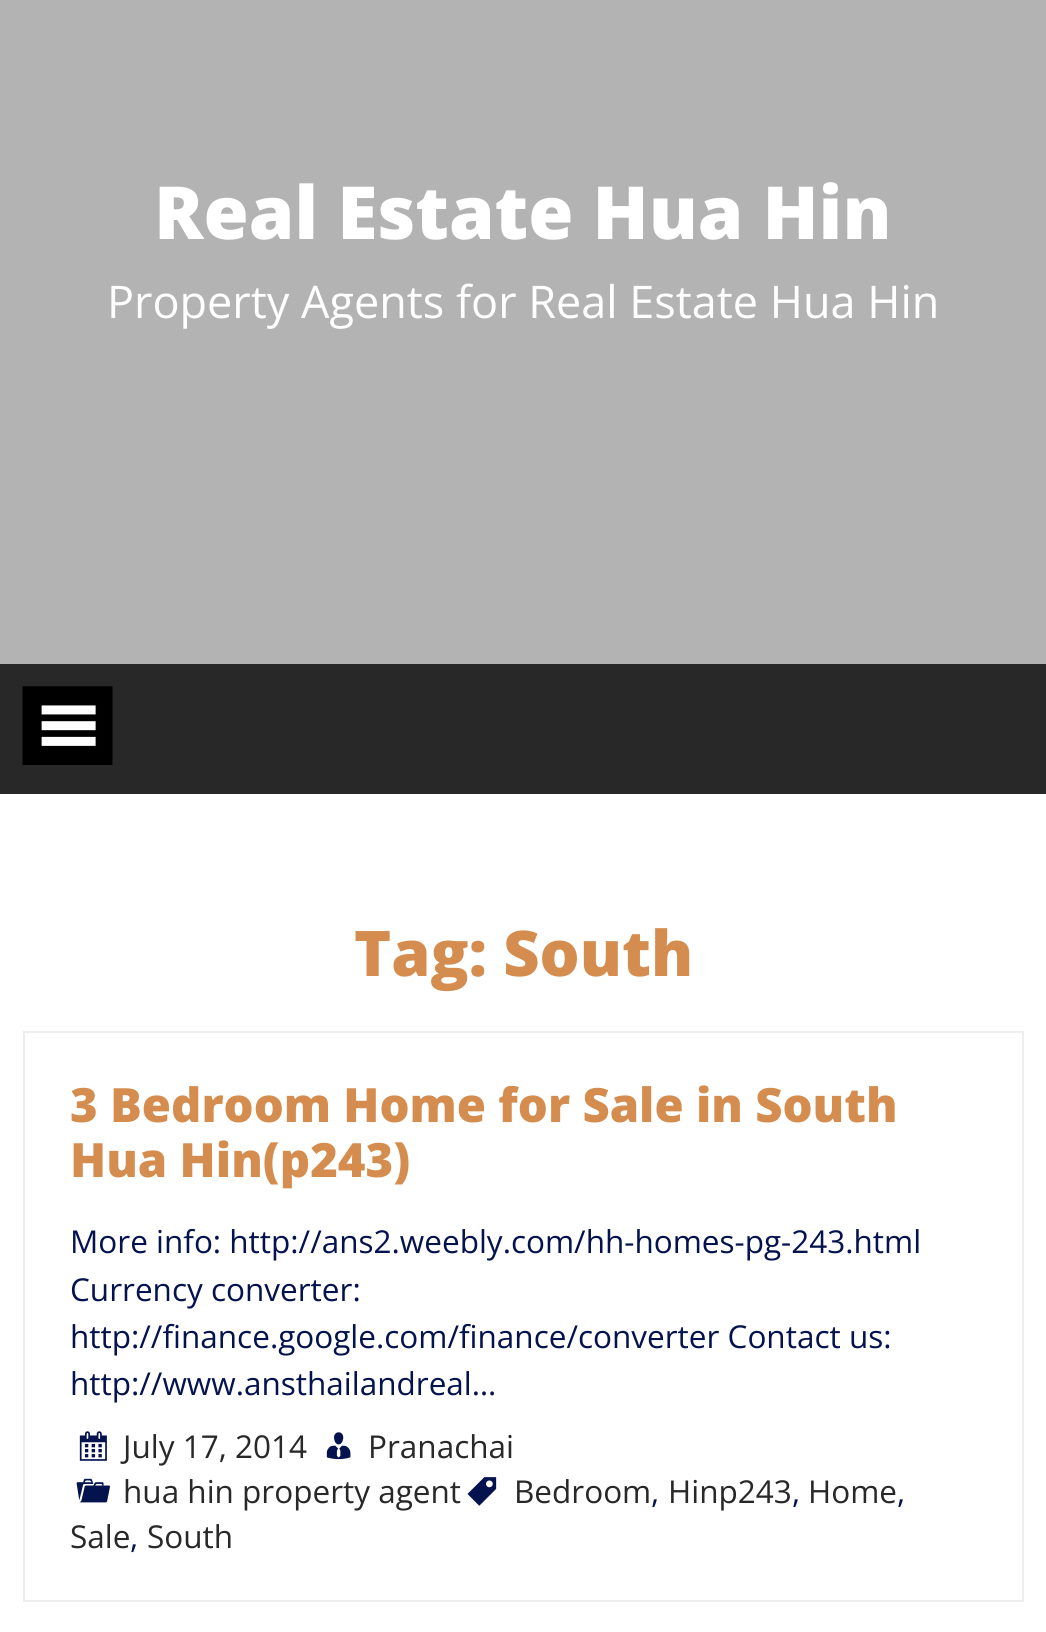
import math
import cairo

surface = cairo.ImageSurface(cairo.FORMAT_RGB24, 1046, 1632)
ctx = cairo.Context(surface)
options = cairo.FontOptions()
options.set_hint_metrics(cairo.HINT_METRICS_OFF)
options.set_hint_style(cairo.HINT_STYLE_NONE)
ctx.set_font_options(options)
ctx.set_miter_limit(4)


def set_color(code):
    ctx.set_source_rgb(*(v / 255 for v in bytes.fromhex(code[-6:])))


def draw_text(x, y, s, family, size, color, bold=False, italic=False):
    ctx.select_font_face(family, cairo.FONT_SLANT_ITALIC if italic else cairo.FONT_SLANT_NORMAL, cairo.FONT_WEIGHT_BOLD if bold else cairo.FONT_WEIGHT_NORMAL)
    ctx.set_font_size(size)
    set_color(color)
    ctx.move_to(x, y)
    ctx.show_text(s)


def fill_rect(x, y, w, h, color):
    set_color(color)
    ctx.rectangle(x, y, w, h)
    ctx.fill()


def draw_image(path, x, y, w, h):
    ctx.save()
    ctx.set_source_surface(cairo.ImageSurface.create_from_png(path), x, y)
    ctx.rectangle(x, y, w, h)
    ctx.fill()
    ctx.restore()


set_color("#ffffff")
ctx.paint()
fill_rect(0, 0, 1046, 664, "#b3b3b3")
draw_text(154, 239, "Real Estate Hua Hin", "Open Sans ExtraBold", 73.25, "#ffffff")
draw_text(107, 318, "Property Agents for Real Estate Hua Hin", "Open Sans", 45, "#ffffff")
fill_rect(0, 664, 1046, 130, "#282828")
draw_image("assets/img1.png", 22, 686, 91, 79)
draw_text(354, 976, "Tag: South", "Open Sans ExtraBold", 63, "#d48d4f")
ctx.rectangle(24, 1032, 999, 569)
set_color("#eeeeee")
ctx.stroke()
draw_text(70, 1122, "3 Bedroom Home for Sale in South", "Open Sans ExtraBold", 47.25, "#d48d4f")
draw_text(70, 1177, "Hua Hin(p243)", "Open Sans ExtraBold", 47.25, "#d48d4f")
draw_text(70, 1253, "More info: http://ans2.weebly.com/hh-homes-pg-243.html", "Open Sans", 31.5, "#04134e")
draw_text(70, 1301, "Currency converter:", "Open Sans", 31.5, "#04134e")
draw_text(70, 1348, "http://finance.google.com/finance/converter Contact us:", "Open Sans", 31.5, "#04134e")
draw_text(70, 1395, "http://www.ansthailandreal…", "Open Sans", 31.5, "#04134e")
draw_image("assets/img2.png", 79, 1431, 28, 30)
draw_text(123, 1458, "July 17, 2014", "Open Sans", 31.5, "#282828")
draw_image("assets/img3.png", 326, 1432, 25, 28)
draw_text(368, 1458, "Pranachai", "Open Sans", 31.5, "#282828")
draw_image("assets/img4.png", 76, 1478, 34, 25)
draw_text(123, 1503, "hua hin property agent", "Open Sans", 31.5, "#282828")
draw_image("assets/img5.png", 467, 1477, 30, 29)
draw_text(514, 1503, "Bedroom", "Open Sans", 31.5, "#282828")
draw_text(651, 1503, ",", "Open Sans", 31.5, "#04134e")
draw_text(668, 1503, "Hinp243", "Open Sans", 31.5, "#282828")
draw_text(792, 1503, ",", "Open Sans", 31.5, "#04134e")
draw_text(808, 1503, "Home", "Open Sans", 31.5, "#282828")
draw_text(897, 1503, ",", "Open Sans", 31.5, "#04134e")
draw_text(70, 1548, "Sale", "Open Sans", 31.5, "#282828")
draw_text(130, 1548, ",", "Open Sans", 31.5, "#04134e")
draw_text(147, 1548, "South", "Open Sans", 31.5, "#282828")
surface.write_to_png("output.png")
